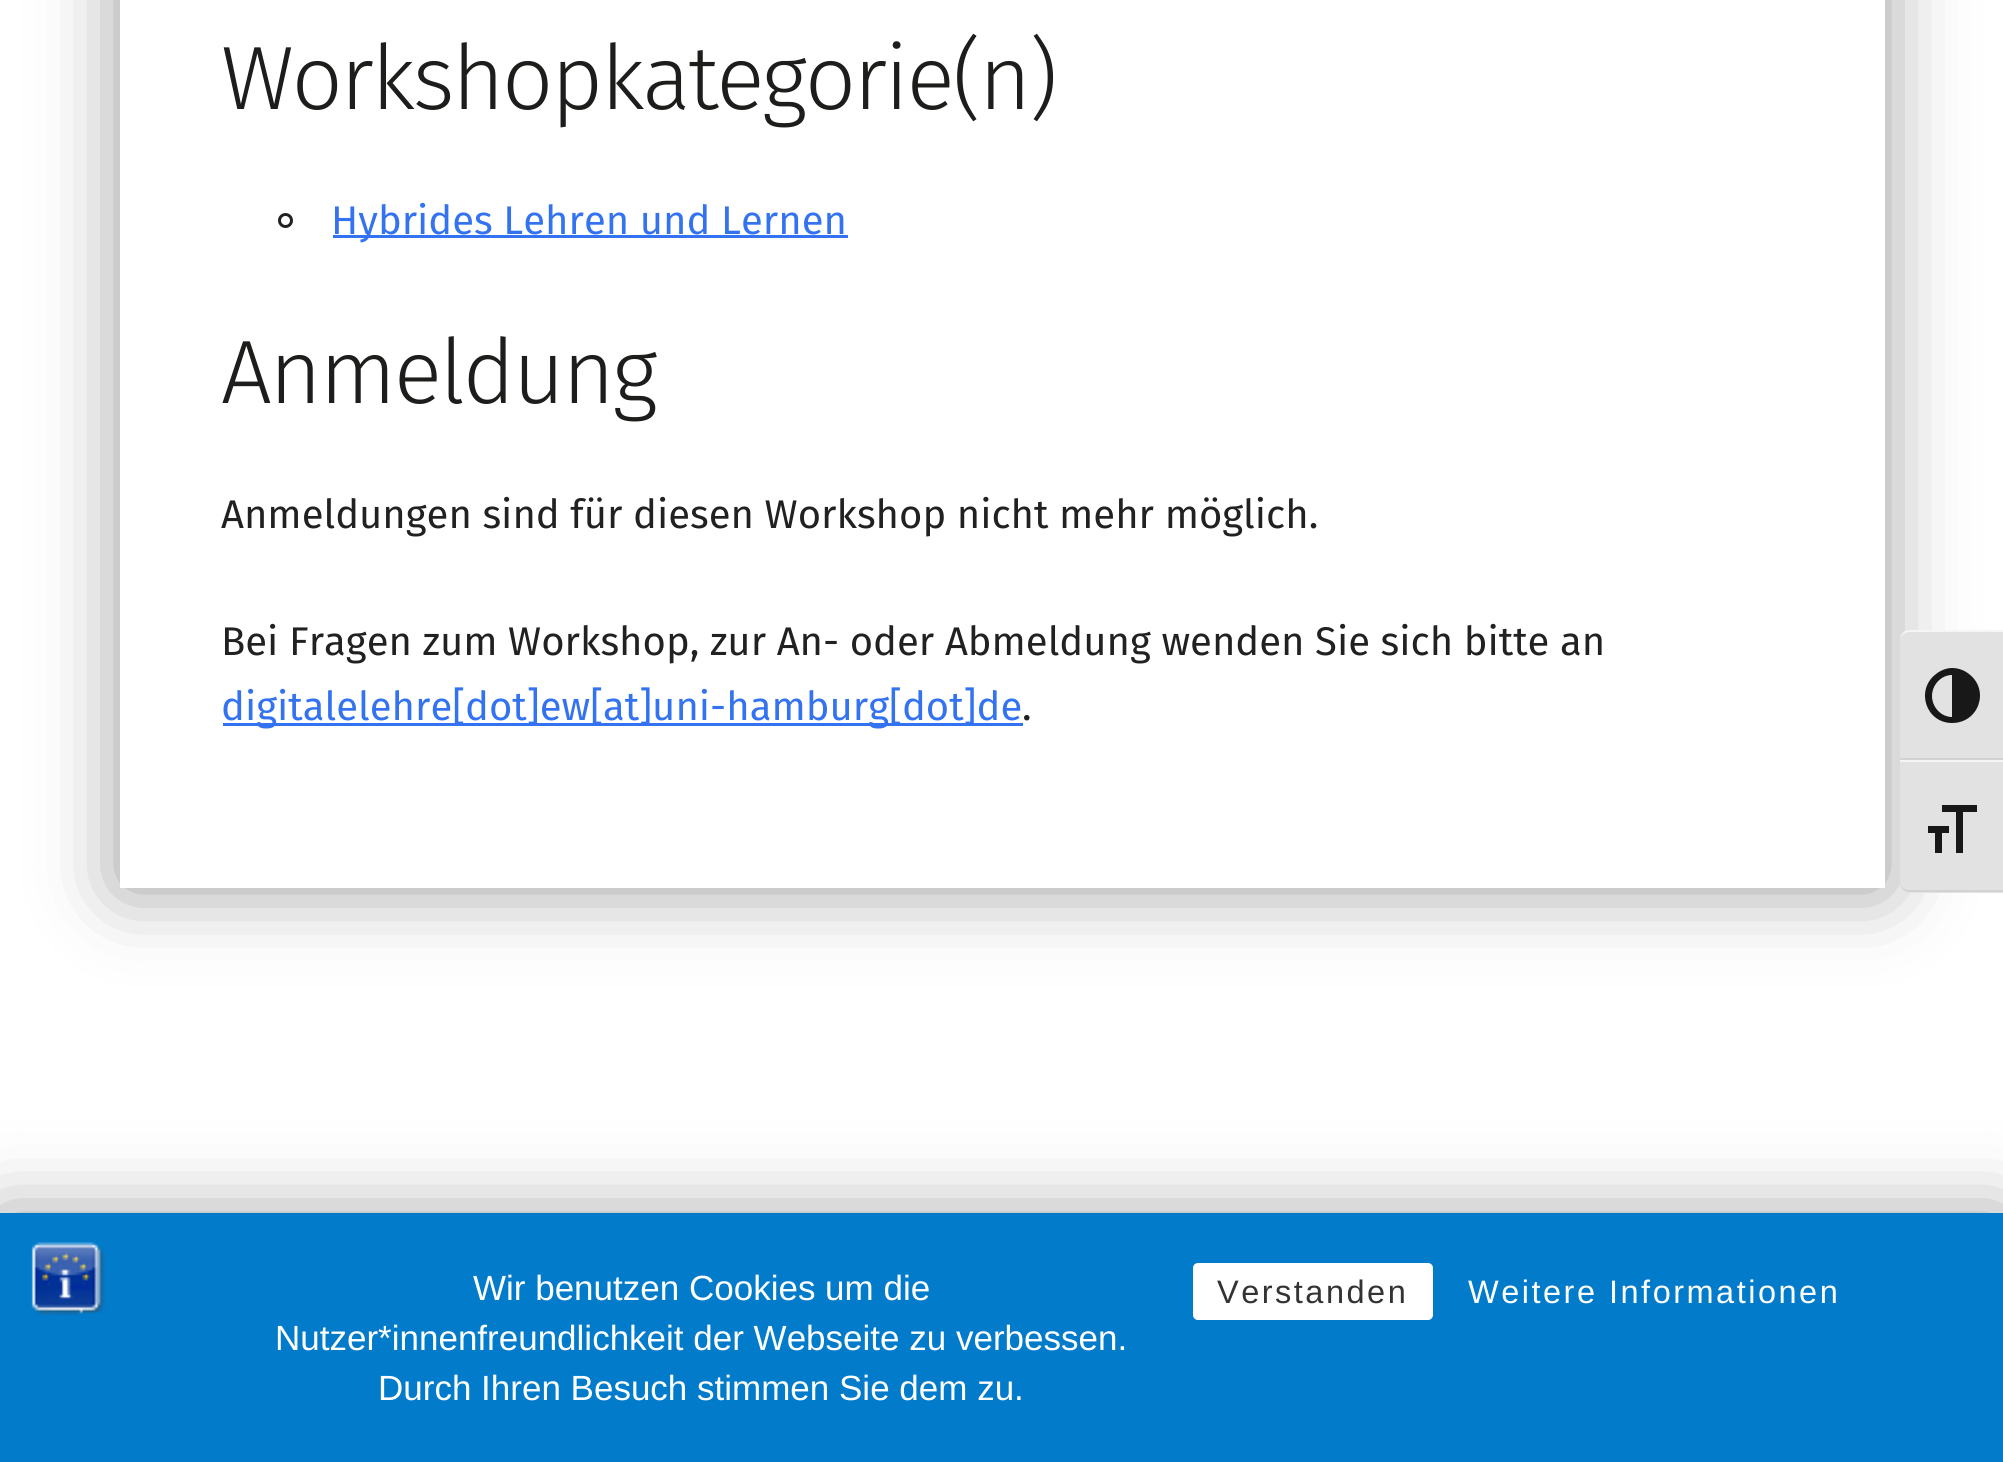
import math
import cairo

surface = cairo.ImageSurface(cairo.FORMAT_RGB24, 2003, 1462)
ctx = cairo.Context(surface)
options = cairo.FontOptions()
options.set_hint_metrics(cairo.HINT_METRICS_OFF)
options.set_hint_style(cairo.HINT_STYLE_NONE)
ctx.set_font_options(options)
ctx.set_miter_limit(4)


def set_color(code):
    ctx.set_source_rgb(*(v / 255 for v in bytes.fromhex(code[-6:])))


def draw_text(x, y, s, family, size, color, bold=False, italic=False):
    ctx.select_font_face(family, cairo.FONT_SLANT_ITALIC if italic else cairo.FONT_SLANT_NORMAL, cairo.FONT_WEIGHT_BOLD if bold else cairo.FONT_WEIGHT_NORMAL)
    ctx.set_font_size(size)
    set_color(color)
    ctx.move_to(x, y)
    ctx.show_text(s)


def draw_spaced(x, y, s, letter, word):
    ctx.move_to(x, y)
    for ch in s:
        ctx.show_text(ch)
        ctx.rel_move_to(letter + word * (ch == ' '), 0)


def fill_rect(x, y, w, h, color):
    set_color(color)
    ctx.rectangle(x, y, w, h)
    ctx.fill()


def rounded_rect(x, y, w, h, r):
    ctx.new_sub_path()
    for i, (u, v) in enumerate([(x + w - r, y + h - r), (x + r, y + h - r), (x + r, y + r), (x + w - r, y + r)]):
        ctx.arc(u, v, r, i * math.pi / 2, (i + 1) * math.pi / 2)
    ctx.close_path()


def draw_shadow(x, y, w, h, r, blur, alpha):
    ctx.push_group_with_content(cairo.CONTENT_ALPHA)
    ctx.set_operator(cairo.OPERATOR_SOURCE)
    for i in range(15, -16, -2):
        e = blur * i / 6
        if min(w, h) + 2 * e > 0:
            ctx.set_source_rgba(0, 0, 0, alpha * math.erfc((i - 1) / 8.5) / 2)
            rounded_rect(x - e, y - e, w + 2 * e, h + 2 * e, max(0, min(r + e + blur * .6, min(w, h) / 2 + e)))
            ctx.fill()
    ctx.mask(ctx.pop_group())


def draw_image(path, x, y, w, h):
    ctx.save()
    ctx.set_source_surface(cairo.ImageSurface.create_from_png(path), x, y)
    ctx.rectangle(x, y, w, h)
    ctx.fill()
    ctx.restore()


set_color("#ffffff")
ctx.paint()
set_color("#000000")
draw_shadow(120, -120, 1765, 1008, 0, 40, 0.4)
fill_rect(120, 0, 1765, 888, "#ffffff")
ctx.select_font_face("Fira Sans Light")
ctx.set_font_size(90)
set_color("#1d1d1b")
draw_spaced(221, 109, "Workshopkategorie(n)", -2.5, 0)
ctx.new_path()
ctx.arc(285.5, 220.5, 6, 0, 2 * math.pi)
set_color("#212121")
ctx.set_line_width(3)
ctx.stroke()
fill_rect(333, 235, 515, 3, "#3372f0")
draw_text(331, 234, "Hybrides Lehren und Lernen", "Fira Sans", 40, "#3372f0")
ctx.select_font_face("Fira Sans Light")
ctx.set_font_size(90)
set_color("#1d1d1b")
draw_spaced(221, 403, "Anmeldung", -2.5, 0)
draw_text(221, 528, "Anmeldungen sind für diesen Workshop nicht mehr möglich.", "Fira Sans", 40, "#212121")
draw_text(221, 655, "Bei Fragen zum Workshop, zur An- oder Abmeldung wenden Sie sich bitte an", "Fira Sans", 40, "#212121")
fill_rect(223, 723, 800, 3, "#3372f0")
draw_text(221, 720, "digitalelehre[dot]ew[at]uni-hamburg[dot]de", "Fira Sans", 40, "#3372f0")
draw_text(1022, 720, ".", "Fira Sans", 40, "#212121")
set_color("#000000")
draw_shadow(0, 1218, 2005, 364, 0, 40, 0.4)
set_color("#e2e2e2")
ctx.new_path()
ctx.move_to(1910, 630)
ctx.line_to(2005, 630)
ctx.line_to(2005, 760)
ctx.line_to(1900, 760)
ctx.line_to(1900, 640)
ctx.curve_to(1900, 634.5, 1904.5, 630, 1910, 630)
ctx.close_path()
ctx.fill()
set_color("#f5f5f5")
ctx.new_path()
ctx.move_to(1910, 632)
ctx.line_to(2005, 632)
ctx.line_to(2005, 630)
ctx.line_to(1910, 630)
ctx.curve_to(1904, 630, 1900, 634, 1900, 640)
ctx.curve_to(1900, 636, 1904, 632, 1910, 632)
ctx.close_path()
ctx.fill()
fill_rect(1900, 758, 103, 2, "#d2d2d2")
set_color("#181818")
ctx.new_path()
ctx.move_to(1952, 668)
ctx.curve_to(1947, 668, 1941, 670, 1936, 674)
ctx.curve_to(1915, 690, 1926, 723, 1952, 723)
ctx.curve_to(1979, 723, 1990, 690, 1969, 674)
ctx.curve_to(1964, 670, 1958, 668, 1952, 668)
ctx.close_path()
ctx.move_to(1932, 696)
ctx.curve_to(1932, 685, 1941, 675, 1952, 675)
ctx.line_to(1952, 717)
ctx.curve_to(1941, 717, 1932, 707, 1932, 696)
ctx.close_path()
ctx.fill()
set_color("#e2e2e2")
ctx.new_path()
ctx.move_to(1900, 760)
ctx.line_to(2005, 760)
ctx.line_to(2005, 893)
ctx.line_to(1910, 893)
ctx.curve_to(1904.5, 893, 1900, 888.5, 1900, 883)
ctx.close_path()
ctx.fill()
fill_rect(1900, 760, 103, 2, "#f5f5f5")
set_color("#d2d2d2")
ctx.new_path()
ctx.move_to(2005, 892)
ctx.line_to(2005, 890)
ctx.line_to(1910, 890)
ctx.curve_to(1904, 890, 1900, 887, 1900, 882)
ctx.curve_to(1900, 888, 1904, 892, 1910, 892)
ctx.close_path()
ctx.fill()
set_color("#181818")
ctx.new_path()
ctx.move_to(1928, 826)
ctx.line_to(1949, 826)
ctx.line_to(1949, 833)
ctx.line_to(1942, 833)
ctx.line_to(1942, 853)
ctx.line_to(1935, 853)
ctx.line_to(1935, 833)
ctx.line_to(1928, 833)
ctx.close_path()
ctx.move_to(1977, 812)
ctx.line_to(1963, 812)
ctx.line_to(1963, 853)
ctx.line_to(1956, 853)
ctx.line_to(1956, 812)
ctx.line_to(1942, 812)
ctx.line_to(1942, 805)
ctx.line_to(1977, 805)
ctx.close_path()
ctx.fill()
fill_rect(0, 1213, 2003, 249, "#027bcb")
draw_image("assets/img1.png", 31, 1242, 74, 74)
draw_text(473, 1300, "Wir benutzen Cookies um die", "Liberation Sans", 35, "#ffffff")
draw_text(275, 1350, "Nutzer*innenfreundlichkeit der Webseite zu verbessen.", "Liberation Sans", 35, "#ffffff")
draw_text(378, 1400, "Durch Ihren Besuch stimmen Sie dem zu.", "Liberation Sans", 35, "#ffffff")
rounded_rect(1193, 1263, 240, 57, 5)
ctx.fill()
ctx.set_font_size(32.5)
set_color("#333333")
draw_spaced(1217, 1303, "Verstanden", 2.5, 0)
set_color("#ffffff")
draw_spaced(1468, 1303, "Weitere Informationen", 2.5, 0)
surface.write_to_png("output.png")
